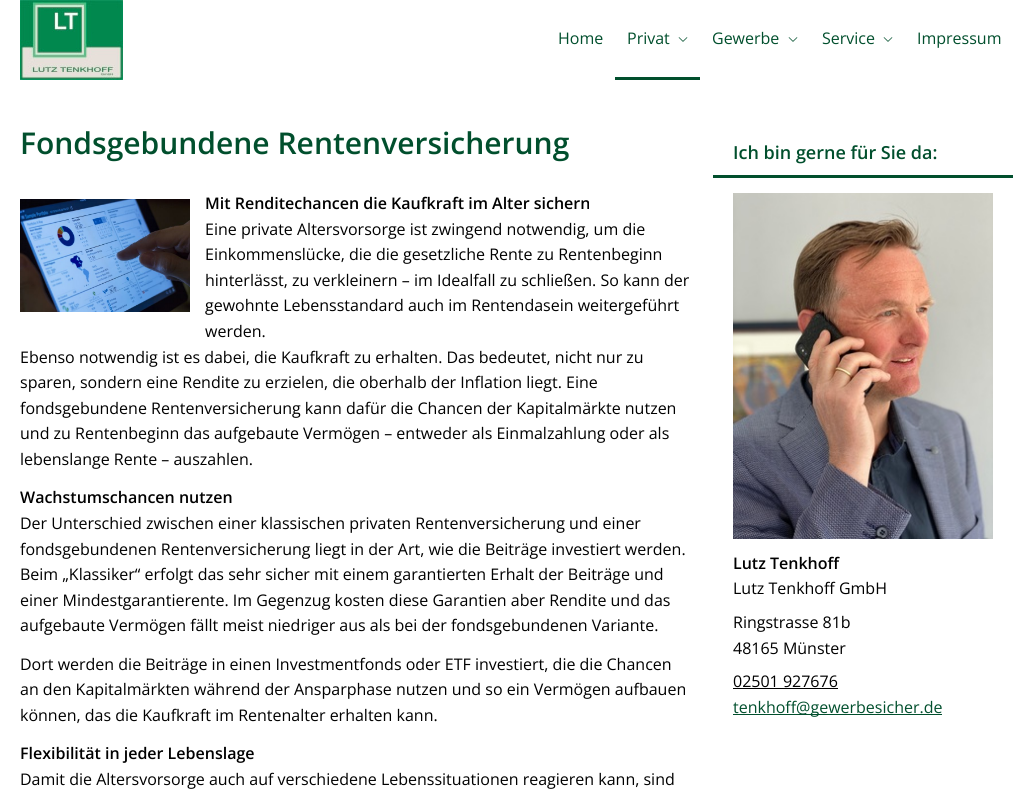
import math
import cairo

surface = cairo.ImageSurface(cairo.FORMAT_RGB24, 1033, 792)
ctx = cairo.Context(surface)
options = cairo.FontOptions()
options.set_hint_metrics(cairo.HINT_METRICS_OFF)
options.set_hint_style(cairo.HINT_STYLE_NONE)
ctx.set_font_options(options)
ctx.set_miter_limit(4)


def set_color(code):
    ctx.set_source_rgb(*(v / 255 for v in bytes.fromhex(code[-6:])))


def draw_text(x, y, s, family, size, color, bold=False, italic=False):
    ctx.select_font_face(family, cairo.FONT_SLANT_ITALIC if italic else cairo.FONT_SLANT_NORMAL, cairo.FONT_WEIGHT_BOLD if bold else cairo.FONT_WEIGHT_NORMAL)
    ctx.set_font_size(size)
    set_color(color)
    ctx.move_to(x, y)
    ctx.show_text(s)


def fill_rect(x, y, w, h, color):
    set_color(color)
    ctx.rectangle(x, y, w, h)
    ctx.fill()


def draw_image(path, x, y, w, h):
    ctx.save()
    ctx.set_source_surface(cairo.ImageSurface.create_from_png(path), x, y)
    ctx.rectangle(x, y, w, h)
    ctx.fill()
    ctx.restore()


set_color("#ffffff")
ctx.paint()
draw_image("assets/img1.png", 20, 0, 103, 80)
draw_text(558, 44, "Home", "Open Sans", 16, "#014f2d")
fill_rect(615, 77, 85, 3, "#014f2d")
draw_text(627, 44, "Privat", "Open Sans", 16, "#014f2d")
draw_image("assets/img2.png", 678, 37, 10, 5)
draw_text(712, 44, "Gewerbe", "Open Sans", 16, "#014f2d")
draw_image("assets/img2.png", 788, 37, 10, 5)
draw_text(822, 44, "Service", "Open Sans", 16, "#014f2d")
draw_image("assets/img2.png", 883, 37, 10, 5)
draw_text(917, 44, "Impressum", "Open Sans", 16, "#014f2d")
draw_text(20, 154, "Fondsgebundene Rentenversicherung", "Open Sans SemiBold", 30, "#014f2d")
draw_text(205, 209, "Mit Renditechancen die Kaufkraft im Alter sichern", "Open Sans SemiBold", 16, "#000000")
draw_text(205, 235, "Eine private Altersvorsorge ist zwingend notwendig, um die", "Open Sans", 16, "#000000")
draw_text(205, 260, "Einkommenslücke, die die gesetzliche Rente zu Rentenbeginn", "Open Sans", 16, "#000000")
draw_text(205, 286, "hinterlässt, zu verkleinern – im Idealfall zu schließen. So kann der", "Open Sans", 16, "#000000")
draw_text(205, 311, "gewohnte Lebensstandard auch im Rentendasein weitergeführt", "Open Sans", 16, "#000000")
draw_text(205, 337, "werden.", "Open Sans", 16, "#000000")
draw_text(20, 363, "Ebenso notwendig ist es dabei, die Kaufkraft zu erhalten. Das bedeutet, nicht nur zu", "Open Sans", 16, "#000000")
draw_text(20, 388, "sparen, sondern eine Rendite zu erzielen, die oberhalb der Inflation liegt. Eine", "Open Sans", 16, "#000000")
draw_text(20, 414, "fondsgebundene Rentenversicherung kann dafür die Chancen der Kapitalmärkte nutzen", "Open Sans", 16, "#000000")
draw_text(20, 439, "und zu Rentenbeginn das aufgebaute Vermögen – entweder als Einmalzahlung oder als", "Open Sans", 16, "#000000")
draw_text(20, 465, "lebenslange Rente – auszahlen.", "Open Sans", 16, "#000000")
draw_image("assets/img3.png", 20, 199, 170, 113)
draw_text(20, 503, "Wachstumschancen nutzen", "Open Sans SemiBold", 16, "#000000")
draw_text(20, 529, "Der Unterschied zwischen einer klassischen privaten Rentenversicherung und einer", "Open Sans", 16, "#000000")
draw_text(20, 555, "fondsgebundenen Rentenversicherung liegt in der Art, wie die Beiträge investiert werden.", "Open Sans", 16, "#000000")
draw_text(20, 580, "Beim „Klassiker“ erfolgt das sehr sicher mit einem garantierten Erhalt der Beiträge und", "Open Sans", 16, "#000000")
draw_text(20, 606, "einer Mindestgarantierente. Im Gegenzug kosten diese Garantien aber Rendite und das", "Open Sans", 16, "#000000")
draw_text(20, 631, "aufgebaute Vermögen fällt meist niedriger aus als bei der fondsgebundenen Variante.", "Open Sans", 16, "#000000")
draw_text(20, 670, "Dort werden die Beiträge in einen Investmentfonds oder ETF investiert, die die Chancen", "Open Sans", 16, "#000000")
draw_text(20, 695, "an den Kapitalmärkten während der Ansparphase nutzen und so ein Vermögen aufbauen", "Open Sans", 16, "#000000")
draw_text(20, 721, "können, das die Kaufkraft im Rentenalter erhalten kann.", "Open Sans", 16, "#000000")
draw_text(20, 759, "Flexibilität in jeder Lebenslage", "Open Sans SemiBold", 16, "#000000")
draw_text(20, 785, "Damit die Altersvorsorge auch auf verschiedene Lebenssituationen reagieren kann, sind", "Open Sans", 16, "#000000")
fill_rect(713, 175, 300, 3, "#014f2d")
draw_text(733, 159, "Ich bin gerne für Sie da:", "Open Sans SemiBold", 18, "#014f2d")
draw_image("assets/img4.png", 733, 193, 260, 346)
draw_text(733, 569, "Lutz Tenkhoff", "Open Sans SemiBold", 16, "#000000")
draw_text(733, 594, "Lutz Tenkhoff GmbH", "Open Sans", 16, "#000000")
draw_text(733, 628, "Ringstrasse 81b", "Open Sans", 16, "#000000")
draw_text(733, 654, "48165 Münster", "Open Sans", 16, "#000000")
draw_text(733, 687, "02501 927676", "Open Sans", 16, "#000000")
fill_rect(733, 688, 105, 1, "#000000")
fill_rect(733, 714, 209, 1, "#014f2d")
draw_text(733, 713, "tenkhoff@gewerbesicher.de", "Open Sans", 16, "#014f2d")
surface.write_to_png("output.png")
